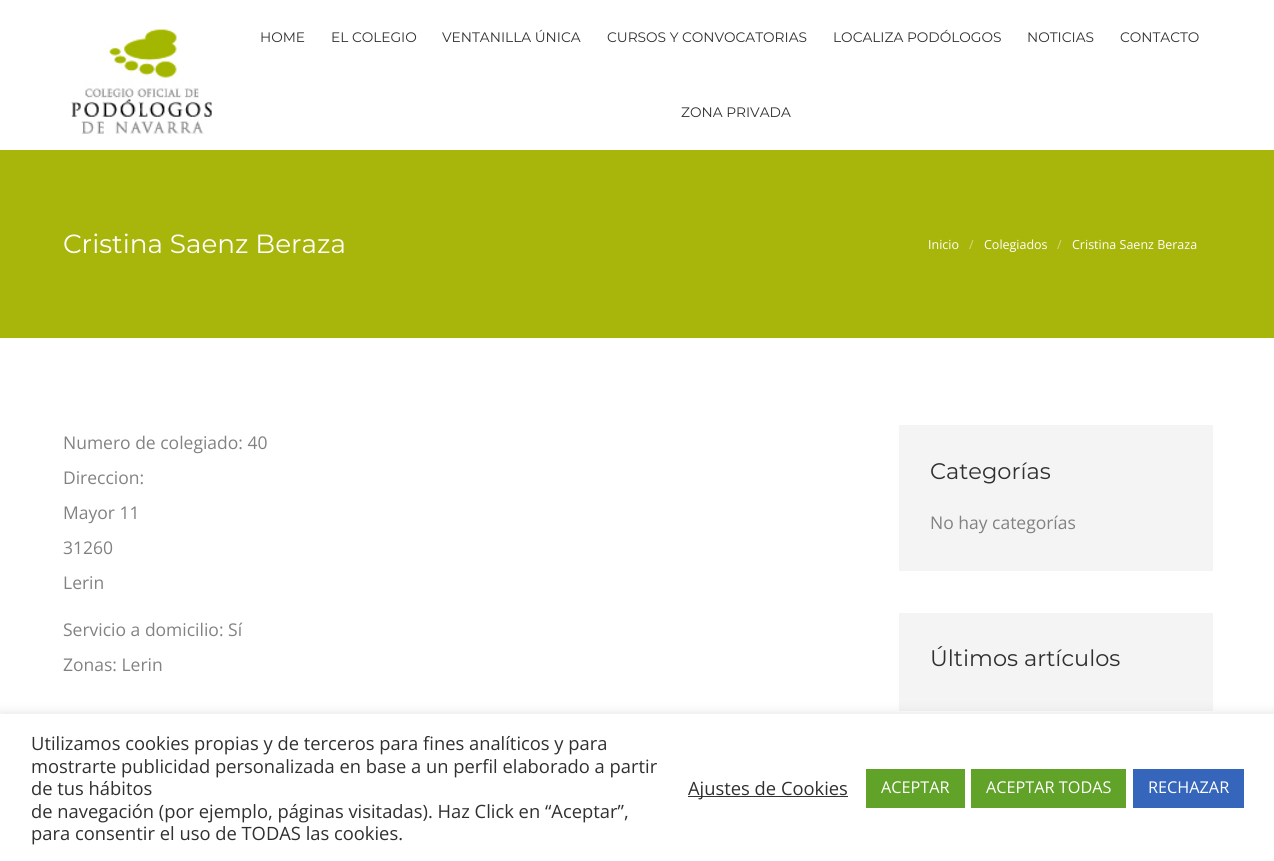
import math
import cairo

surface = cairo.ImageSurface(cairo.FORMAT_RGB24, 1274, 861)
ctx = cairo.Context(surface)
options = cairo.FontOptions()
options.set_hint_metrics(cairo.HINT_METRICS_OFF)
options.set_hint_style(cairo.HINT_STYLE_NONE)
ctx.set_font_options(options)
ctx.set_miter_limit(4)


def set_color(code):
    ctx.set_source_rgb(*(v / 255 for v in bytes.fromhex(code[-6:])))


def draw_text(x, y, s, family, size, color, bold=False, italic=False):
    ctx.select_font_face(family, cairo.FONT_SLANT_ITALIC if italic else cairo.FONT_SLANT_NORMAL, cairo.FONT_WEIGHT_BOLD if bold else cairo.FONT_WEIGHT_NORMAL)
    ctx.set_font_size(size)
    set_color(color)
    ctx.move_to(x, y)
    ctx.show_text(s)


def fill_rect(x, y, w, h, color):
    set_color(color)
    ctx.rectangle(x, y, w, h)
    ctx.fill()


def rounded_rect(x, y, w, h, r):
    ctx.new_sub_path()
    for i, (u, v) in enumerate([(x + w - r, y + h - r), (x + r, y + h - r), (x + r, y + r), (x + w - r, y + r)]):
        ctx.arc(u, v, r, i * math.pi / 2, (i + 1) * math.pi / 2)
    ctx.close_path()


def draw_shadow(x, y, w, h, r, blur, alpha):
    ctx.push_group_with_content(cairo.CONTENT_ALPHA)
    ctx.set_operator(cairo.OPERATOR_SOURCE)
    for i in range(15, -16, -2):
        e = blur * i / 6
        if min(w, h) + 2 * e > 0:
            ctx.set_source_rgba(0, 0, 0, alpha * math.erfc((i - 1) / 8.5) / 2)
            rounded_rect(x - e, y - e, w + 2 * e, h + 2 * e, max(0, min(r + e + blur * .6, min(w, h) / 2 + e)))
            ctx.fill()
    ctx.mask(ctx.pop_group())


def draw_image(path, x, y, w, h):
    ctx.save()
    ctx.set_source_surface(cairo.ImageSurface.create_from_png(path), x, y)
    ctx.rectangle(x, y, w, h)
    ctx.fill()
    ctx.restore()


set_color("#ffffff")
ctx.paint()
draw_image("assets/img1.png", 71, 29, 141, 105)
draw_text(260, 42, "HOME", "Montserrat", 13.75, "#303030")
draw_text(331, 42, "EL COLEGIO", "Montserrat", 13.75, "#303030")
draw_text(442, 42, "VENTANILLA ÚNICA", "Montserrat", 13.75, "#303030")
draw_text(607, 42, "CURSOS Y CONVOCATORIAS", "Montserrat", 13.75, "#303030")
draw_text(833, 42, "LOCALIZA PODÓLOGOS", "Montserrat", 13.75, "#303030")
draw_text(1027, 42, "NOTICIAS", "Montserrat", 13.75, "#303030")
draw_text(1120, 42, "CONTACTO", "Montserrat", 13.75, "#303030")
draw_text(681, 117, "ZONA PRIVADA", "Montserrat", 13.75, "#303030")
fill_rect(0, 150, 1274, 188, "#a8b50a")
draw_text(63, 253, "Cristina Saenz Beraza", "Montserrat", 26.25, "#ffffff")
draw_text(928, 249, "Inicio", "Open Sans", 12.5, "#ffffff")
draw_text(969, 249, "/", "Open Sans", 12.5, "#d4da85")
draw_text(984, 249, "Colegiados", "Open Sans", 12.5, "#ffffff")
draw_text(1057, 249, "/", "Open Sans", 12.5, "#d4da85")
draw_text(1072, 249, "Cristina Saenz Beraza", "Open Sans", 12.5, "#ffffff")
draw_text(63, 449, "Numero de colegiado: 40", "Open Sans", 17.5, "#828282")
draw_text(63, 484, "Direccion:", "Open Sans", 17.5, "#828282")
draw_text(63, 519, "Mayor 11", "Open Sans", 17.5, "#828282")
draw_text(63, 554, "31260", "Open Sans", 17.5, "#828282")
draw_text(63, 589, "Lerin", "Open Sans", 17.5, "#828282")
draw_text(63, 636, "Servicio a domicilio: Sí", "Open Sans", 17.5, "#828282")
draw_text(63, 671, "Zonas: Lerin", "Open Sans", 17.5, "#828282")
fill_rect(899, 425, 314, 146, "#f4f4f4")
draw_text(930, 479, "Categorías", "Montserrat", 22.5, "#303030")
draw_text(930, 529, "No hay categorías", "Open Sans", 17.5, "#828282")
fill_rect(899, 613, 314, 98, "#f4f4f4")
draw_text(930, 666, "Últimos artículos", "Montserrat", 22.5, "#303030")
set_color("#acabab")
draw_shadow(0, 713, 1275, 147, 0, 6, 0.3)
fill_rect(0, 714, 1274, 147, "#ffffff")
draw_text(31, 750, "Utilizamos cookies propias y de terceros para fines analíticos y para", "Open Sans", 18.35, "#303030")
draw_text(31, 773, "mostrarte publicidad personalizada en base a un perfil elaborado a partir", "Open Sans", 18.35, "#303030")
draw_text(31, 795, "de tus hábitos", "Open Sans", 18.35, "#303030")
draw_text(31, 818, "de navegación (por ejemplo, páginas visitadas). Haz Click en “Aceptar”,", "Open Sans", 18.35, "#303030")
draw_text(31, 840, "para consentir el uso de TODAS las cookies.", "Open Sans", 18.35, "#303030")
fill_rect(688, 796, 160, 1, "#333333")
draw_text(688, 795, "Ajustes de Cookies", "Open Sans", 18.35, "#303030")
fill_rect(866, 769, 99, 39, "#61a229")
draw_text(881, 793, "ACEPTAR", "Open Sans", 16.25, "#ffffff")
fill_rect(971, 769, 155, 39, "#61a229")
draw_text(986, 793, "ACEPTAR TODAS", "Open Sans", 16.25, "#ffffff")
fill_rect(1133, 769, 111, 39, "#3566bb")
draw_text(1148, 793, "RECHAZAR", "Open Sans", 16.25, "#ffffff")
surface.write_to_png("output.png")
